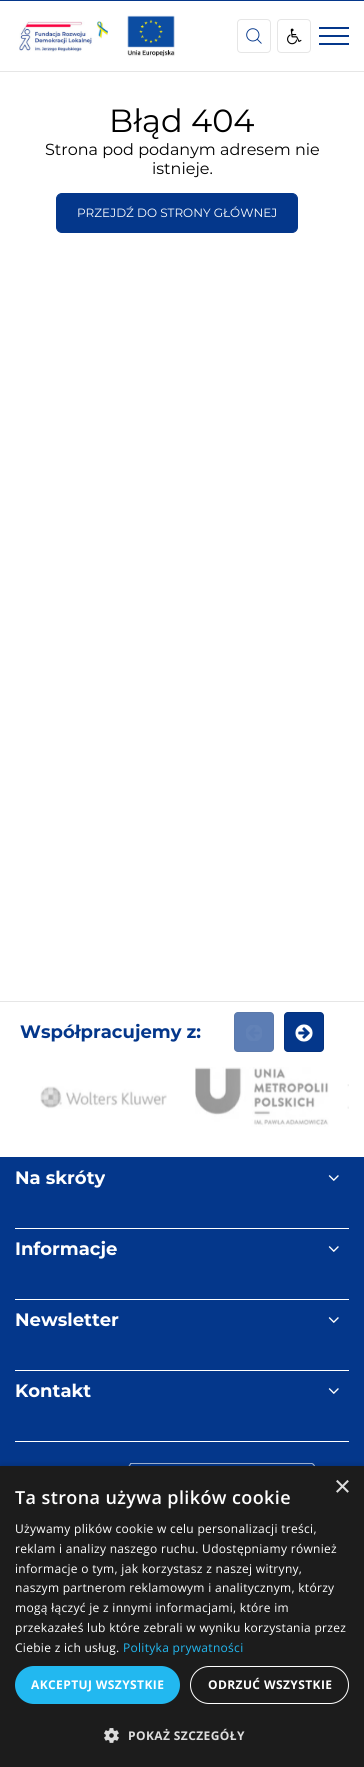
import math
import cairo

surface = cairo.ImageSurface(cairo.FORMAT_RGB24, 364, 1767)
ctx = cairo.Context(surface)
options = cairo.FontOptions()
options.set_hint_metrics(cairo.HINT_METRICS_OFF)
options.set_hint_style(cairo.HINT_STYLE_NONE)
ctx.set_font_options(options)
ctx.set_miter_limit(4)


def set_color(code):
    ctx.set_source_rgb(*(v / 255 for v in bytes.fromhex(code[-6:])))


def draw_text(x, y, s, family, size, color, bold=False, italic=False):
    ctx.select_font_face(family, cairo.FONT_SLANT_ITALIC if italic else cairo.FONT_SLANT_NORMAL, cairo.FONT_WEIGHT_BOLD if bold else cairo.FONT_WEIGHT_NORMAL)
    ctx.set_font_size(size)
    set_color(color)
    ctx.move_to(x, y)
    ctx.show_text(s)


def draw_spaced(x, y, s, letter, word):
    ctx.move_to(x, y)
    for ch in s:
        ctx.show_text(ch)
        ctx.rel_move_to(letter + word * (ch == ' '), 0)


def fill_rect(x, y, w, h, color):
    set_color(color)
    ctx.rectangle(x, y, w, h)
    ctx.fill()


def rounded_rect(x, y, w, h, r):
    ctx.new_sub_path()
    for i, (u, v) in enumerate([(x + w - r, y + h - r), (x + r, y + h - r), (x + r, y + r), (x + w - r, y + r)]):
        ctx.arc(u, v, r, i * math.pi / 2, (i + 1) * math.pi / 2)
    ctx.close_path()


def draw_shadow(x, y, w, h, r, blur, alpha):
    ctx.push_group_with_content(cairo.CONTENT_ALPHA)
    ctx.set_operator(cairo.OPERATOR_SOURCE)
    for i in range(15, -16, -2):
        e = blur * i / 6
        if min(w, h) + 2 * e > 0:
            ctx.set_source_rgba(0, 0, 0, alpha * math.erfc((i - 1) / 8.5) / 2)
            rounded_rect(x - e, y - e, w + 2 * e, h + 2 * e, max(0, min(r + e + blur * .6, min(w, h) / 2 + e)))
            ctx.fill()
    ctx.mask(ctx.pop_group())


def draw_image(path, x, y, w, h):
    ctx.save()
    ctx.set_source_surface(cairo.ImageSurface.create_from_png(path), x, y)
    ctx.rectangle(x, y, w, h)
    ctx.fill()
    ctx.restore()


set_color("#ffffff")
ctx.paint()
fill_rect(0, 71, 364, 1, "#e6e6e6")
fill_rect(0, 0, 364, 1, "#04378b")
draw_image("assets/img1.png", 19, 21, 89, 31)
draw_image("assets/img2.png", 127, 15, 48, 42)
rounded_rect(237.5, 19.5, 33, 33, 3.5)
set_color("#e6e6e6")
ctx.set_line_width(1)
ctx.stroke()
draw_image("assets/img3.png", 246, 28, 16, 16)
rounded_rect(277.5, 19.5, 33, 33, 3.5)
ctx.stroke()
draw_image("assets/img4.png", 287, 28, 15, 17)
fill_rect(319, 27, 30, 2, "#04378b")
fill_rect(319, 35, 30, 2, "#04378b")
fill_rect(319, 43, 30, 2, "#04378b")
draw_text(109, 132, "Błąd 404", "Montserrat", 32, "#000000")
draw_text(45, 155, "Strona pod podanym adresem nie", "Montserrat", 16, "#000000")
draw_text(152, 174, "istnieje.", "Montserrat", 16, "#000000")
set_color("#04378b")
rounded_rect(56.5, 193.5, 241, 39, 5.5)
ctx.fill_preserve()
ctx.stroke()
draw_text(77, 217, "PRZEJDŹ DO STRONY GŁÓWNEJ", "Montserrat", 12, "#ffffff")
fill_rect(0, 1001, 364, 1, "#e6e6e6")
set_color("#5c7db4")
rounded_rect(234, 1012, 40, 40, 4)
ctx.fill()
rounded_rect(234.5, 1012.5, 39, 39, 3.5)
ctx.set_source_rgba(0.349, 0.349, 0.349, 0.1)
ctx.stroke()
draw_image("assets/img5.png", 246, 1025, 16, 16)
set_color("#04378b")
rounded_rect(284, 1012, 40, 40, 4)
ctx.fill()
rounded_rect(284.5, 1012.5, 39, 39, 3.5)
ctx.set_source_rgba(0, 0, 0, 0.1)
ctx.stroke()
draw_image("assets/img6.png", 295, 1024, 18, 18)
draw_image("assets/img7.png", 40, 1086, 127, 23)
draw_image("assets/img8.png", 195, 1067, 134, 60)
draw_image("assets/img9.png", 347, 1084, 2, 25)
draw_text(20, 1038, "Współpracujemy z:", "Montserrat", 18, "#04378b", bold=True)
fill_rect(0, 1157, 364, 309, "#04378b")
fill_rect(15, 1228, 334, 1, "#ffffff")
draw_text(15, 1184, "Na skróty", "Montserrat", 18, "#ffffff", bold=True)
draw_image("assets/img10.png", 328, 1175, 11, 6)
fill_rect(15, 1299, 334, 1, "#ffffff")
draw_text(15, 1255, "Informacje", "Montserrat", 18, "#ffffff", bold=True)
draw_image("assets/img10.png", 328, 1246, 11, 6)
fill_rect(15, 1370, 334, 1, "#ffffff")
draw_text(15, 1326, "Newsletter", "Montserrat", 18, "#ffffff", bold=True)
draw_image("assets/img10.png", 328, 1317, 11, 6)
fill_rect(15, 1441, 334, 1, "#ffffff")
draw_text(15, 1397, "Kontakt", "Montserrat", 18, "#ffffff", bold=True)
draw_image("assets/img10.png", 328, 1388, 11, 6)
draw_image("assets/img11.png", 128, 1463, 187, 3)
set_color("#000000")
draw_shadow(1, 1468, 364, 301, 0, 4, 0.35)
fill_rect(0, 1466, 364, 301, "#1c1c1c")
draw_text(334, 1496, "×", "Liberation Sans", 29, "#dddddd")
ctx.select_font_face("Open Sans SemiBold")
ctx.set_font_size(18)
set_color("#ffffff")
draw_spaced(15, 1504, "Ta strona używa plików cookie", 0.4, 0)
ctx.select_font_face("Open Sans")
ctx.set_font_size(12)
draw_spaced(15, 1533, "Używamy plików cookie w celu personalizacji treści,", 0.3, 0)
draw_spaced(15, 1553, "reklam i analizy naszego ruchu. Udostępniamy również", 0.3, 0)
draw_spaced(15, 1573, "informacje o tym, jak korzystasz z naszej witryny,", 0.3, 0)
draw_spaced(15, 1592, "naszym partnerom reklamowym i analitycznym, którzy", 0.3, 0)
draw_spaced(15, 1612, "mogą łączyć je z innymi informacjami, które im", 0.3, 0)
draw_spaced(15, 1632, "przekazałeś lub które zebrali w wyniku korzystania przez", 0.3, 0)
draw_spaced(15, 1652, "Ciebie z ich usług.", 0.3, 0)
set_color("#22b8f0")
draw_spaced(123, 1652, "Polityka prywatności", 0.3, 0)
rounded_rect(15, 1666, 165, 38, 19)
ctx.fill()
ctx.select_font_face("Open Sans", cairo.FONT_SLANT_NORMAL, cairo.FONT_WEIGHT_BOLD)
set_color("#ffffff")
draw_spaced(31, 1689, "AKCEPTUJ WSZYSTKIE", 0.4, 0)
rounded_rect(190.5, 1666.5, 158, 37, 18.5)
ctx.stroke()
draw_spaced(208, 1689, "ODRZUĆ WSZYSTKIE", 0.4, 0)
draw_image("assets/img12.png", 104, 1728, 15, 15)
set_color("#dddddd")
draw_spaced(128, 1740, "POKAŻ SZCZEGÓŁY", 0.4, 0)
surface.write_to_png("output.png")
